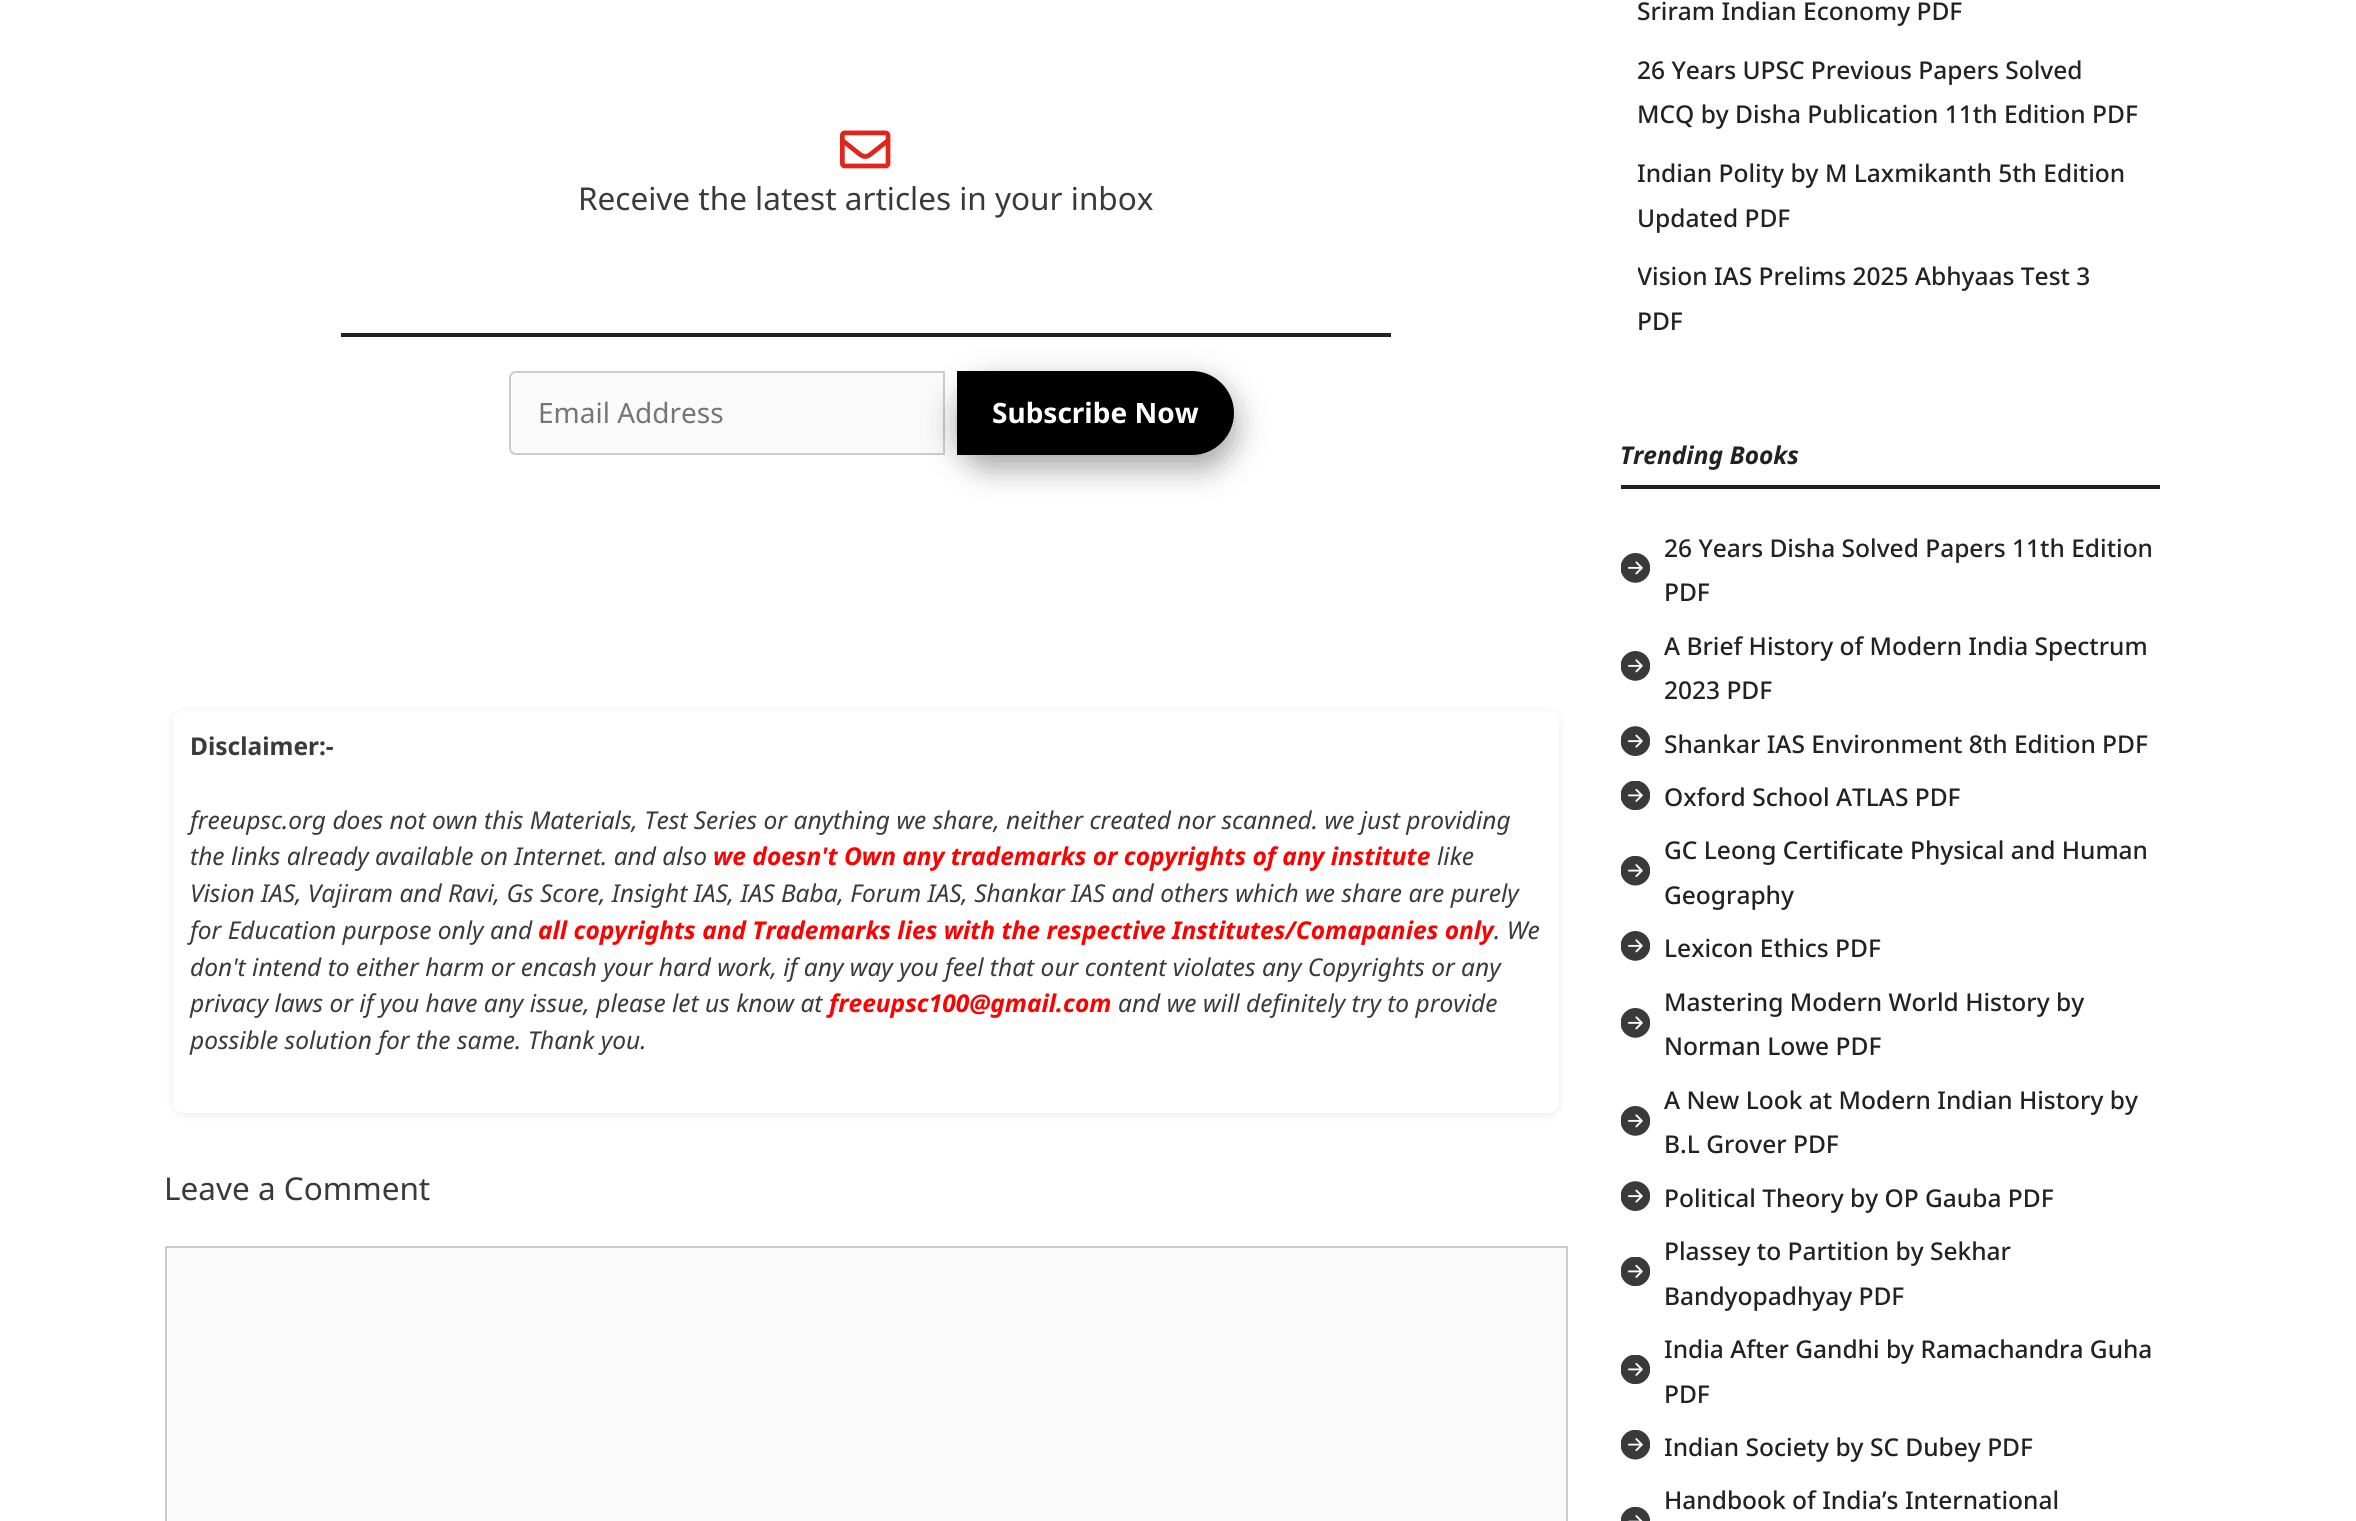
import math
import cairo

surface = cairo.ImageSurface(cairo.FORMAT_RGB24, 2356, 1521)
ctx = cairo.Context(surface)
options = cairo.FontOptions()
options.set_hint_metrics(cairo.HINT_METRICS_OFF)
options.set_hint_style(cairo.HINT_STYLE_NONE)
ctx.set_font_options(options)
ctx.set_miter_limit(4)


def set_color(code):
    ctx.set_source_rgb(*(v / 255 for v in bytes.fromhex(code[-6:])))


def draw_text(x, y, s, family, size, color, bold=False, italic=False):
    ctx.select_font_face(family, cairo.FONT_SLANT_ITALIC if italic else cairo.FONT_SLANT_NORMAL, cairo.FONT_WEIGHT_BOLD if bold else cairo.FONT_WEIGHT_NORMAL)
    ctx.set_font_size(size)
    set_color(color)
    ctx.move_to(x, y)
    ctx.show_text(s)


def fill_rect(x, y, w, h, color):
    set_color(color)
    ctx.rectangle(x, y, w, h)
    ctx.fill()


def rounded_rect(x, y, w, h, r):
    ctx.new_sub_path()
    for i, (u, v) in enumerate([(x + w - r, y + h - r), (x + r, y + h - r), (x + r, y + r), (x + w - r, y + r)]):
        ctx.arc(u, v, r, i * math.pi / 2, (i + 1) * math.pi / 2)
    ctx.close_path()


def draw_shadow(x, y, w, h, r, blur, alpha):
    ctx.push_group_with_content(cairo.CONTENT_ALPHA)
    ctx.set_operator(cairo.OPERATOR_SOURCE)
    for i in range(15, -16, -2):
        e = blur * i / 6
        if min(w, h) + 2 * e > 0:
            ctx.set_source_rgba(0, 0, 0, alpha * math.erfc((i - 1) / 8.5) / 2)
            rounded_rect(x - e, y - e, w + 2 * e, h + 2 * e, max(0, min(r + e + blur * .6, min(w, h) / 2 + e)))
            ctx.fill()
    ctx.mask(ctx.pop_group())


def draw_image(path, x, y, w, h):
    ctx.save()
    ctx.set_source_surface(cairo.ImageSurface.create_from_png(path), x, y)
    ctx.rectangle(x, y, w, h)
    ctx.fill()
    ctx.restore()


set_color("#ffffff")
ctx.paint()
draw_image("assets/img1.png", 840, 130, 51, 39)
draw_text(578, 210, "Receive the latest articles in your inbox", "Noto Sans", 31.5, "#3a3a3a")
fill_rect(341, 333, 1050, 4, "#222222")
set_color("#fafafa")
ctx.new_path()
ctx.move_to(516, 372)
ctx.line_to(944, 372)
ctx.line_to(944, 454)
ctx.line_to(516, 454)
ctx.curve_to(512.5, 454, 510, 451.5, 510, 448)
ctx.line_to(510, 378)
ctx.curve_to(510, 374.5, 512.5, 372, 516, 372)
ctx.close_path()
ctx.fill_preserve()
set_color("#cccccc")
ctx.stroke()
draw_text(538, 423, "Email Address", "Noto Sans", 28, "#757575")
set_color("#000000")
draw_shadow(957, 382, 277, 84, 42, 17.5, 0.19)
draw_shadow(957, 385, 277, 84, 42, 14, 0.2)
set_color("#000000")
ctx.new_path()
ctx.move_to(957, 371)
ctx.line_to(1192, 371)
ctx.curve_to(1215, 371, 1234, 390, 1234, 413)
ctx.curve_to(1234, 436, 1215, 455, 1192, 455)
ctx.line_to(957, 455)
ctx.close_path()
ctx.fill()
draw_text(992, 423, "Subscribe Now", "Noto Sans", 28, "#ffffff", bold=True)
ctx.save()
ctx.set_fill_rule(cairo.FILL_RULE_EVEN_ODD)
ctx.new_path()
ctx.move_to(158, 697)
ctx.line_to(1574, 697)
ctx.line_to(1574, 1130)
ctx.line_to(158, 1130)
ctx.close_path()
ctx.move_to(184, 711)
ctx.line_to(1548, 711)
ctx.curve_to(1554, 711, 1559, 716, 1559, 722)
ctx.line_to(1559, 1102)
ctx.curve_to(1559, 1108, 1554, 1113, 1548, 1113)
ctx.line_to(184, 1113)
ctx.curve_to(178, 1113, 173, 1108, 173, 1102)
ctx.line_to(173, 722)
ctx.curve_to(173, 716, 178, 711, 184, 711)
ctx.close_path()
ctx.clip()
set_color("#000000")
draw_shadow(173, 712, 1386, 403, 11, 4.5, 0.08)
ctx.restore()
draw_text(190, 755, "Disclaimer:-", "Noto Sans", 24.5, "#3a3a3a", bold=True)
draw_text(190, 829, "freeupsc.org does not own this Materials, Test Series or anything we share, neither created nor scanned. we just providing", "Noto Sans", 24.5, "#3a3a3a", italic=True)
draw_text(190, 865, "the links already available on Internet. and also", "Noto Sans", 24.5, "#3a3a3a", italic=True)
draw_text(713, 865, "we doesn't Own any trademarks or copyrights of any institute", "Noto Sans", 24.5, "#ff0000", bold=True, italic=True)
draw_text(1437, 865, "like", "Noto Sans", 24.5, "#3a3a3a", italic=True)
draw_text(190, 902, "Vision IAS, Vajiram and Ravi, Gs Score, Insight IAS, IAS Baba, Forum IAS, Shankar IAS and others which we share are purely", "Noto Sans", 24.5, "#3a3a3a", italic=True)
draw_text(190, 939, "for Education purpose only and", "Noto Sans", 24.5, "#3a3a3a", italic=True)
draw_text(538, 939, "all copyrights and Trademarks lies with the respective Institutes/Comapanies only", "Noto Sans", 24.5, "#ff0000", bold=True, italic=True)
draw_text(1494, 939, ". We", "Noto Sans", 24.5, "#3a3a3a", italic=True)
draw_text(190, 976, "don't intend to either harm or encash your hard work, if any way you feel that our content violates any Copyrights or any", "Noto Sans", 24.5, "#3a3a3a", italic=True)
draw_text(190, 1012, "privacy laws or if you have any issue, please let us know at", "Noto Sans", 24.5, "#3a3a3a", italic=True)
draw_text(829, 1012, "freeupsc100@gmail.com", "Noto Sans", 24.5, "#ff0000", bold=True, italic=True)
draw_text(1118, 1012, "and we will definitely try to provide", "Noto Sans", 24.5, "#3a3a3a", italic=True)
draw_text(190, 1049, "possible solution for the same. Thank you.", "Noto Sans", 24.5, "#3a3a3a", italic=True)
draw_text(164, 1200, "Leave a Comment", "Noto Sans", 31.5, "#3a3a3a")
set_color("#fafafa")
ctx.rectangle(166, 1247, 1401, 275)
ctx.fill_preserve()
set_color("#cccccc")
ctx.stroke()
draw_text(1637, 20, "Sriram Indian Economy PDF", "Noto Sans Medium", 24.5, "#222222")
draw_text(1637, 79, "26 Years UPSC Previous Papers Solved", "Noto Sans Medium", 24.5, "#222222")
draw_text(1637, 123, "MCQ by Disha Publication 11th Edition PDF", "Noto Sans Medium", 24.5, "#222222")
draw_text(1637, 182, "Indian Polity by M Laxmikanth 5th Edition", "Noto Sans Medium", 24.5, "#222222")
draw_text(1637, 227, "Updated PDF", "Noto Sans Medium", 24.5, "#222222")
ctx.save()
ctx.rectangle(1638, 252, 504, 95)
ctx.clip()
draw_text(1637, 285, "Vision IAS Prelims 2025 Abhyaas Test 3", "Noto Sans Medium", 24.5, "#222222")
ctx.restore()
draw_text(1637, 330, "PDF", "Noto Sans Medium", 24.5, "#222222")
fill_rect(1621, 485, 539, 4, "#222222")
draw_text(1620, 464, "Trending Books", "Noto Sans", 24.5, "#222222", bold=True, italic=True)
draw_image("assets/img2.png", 1621, 553, 29, 30)
draw_text(1664, 557, "26 Years Disha Solved Papers 11th Edition", "Noto Sans Medium", 24.5, "#222222")
draw_text(1664, 601, "PDF", "Noto Sans Medium", 24.5, "#222222")
draw_image("assets/img2.png", 1621, 651, 29, 30)
draw_text(1664, 655, "A Brief History of Modern India Spectrum", "Noto Sans Medium", 24.5, "#222222")
draw_text(1664, 699, "2023 PDF", "Noto Sans Medium", 24.5, "#222222")
draw_image("assets/img3.png", 1621, 726, 29, 30)
draw_text(1664, 753, "Shankar IAS Environment 8th Edition PDF", "Noto Sans Medium", 24.5, "#222222")
draw_image("assets/img4.png", 1621, 781, 29, 29)
draw_text(1664, 806, "Oxford School ATLAS PDF", "Noto Sans Medium", 24.5, "#222222")
draw_image("assets/img5.png", 1621, 856, 29, 30)
draw_text(1664, 859, "GC Leong Certificate Physical and Human", "Noto Sans Medium", 24.5, "#222222")
draw_text(1664, 904, "Geography", "Noto Sans Medium", 24.5, "#222222")
draw_image("assets/img2.png", 1621, 931, 29, 30)
draw_text(1664, 957, "Lexicon Ethics PDF", "Noto Sans Medium", 24.5, "#222222")
draw_image("assets/img2.png", 1621, 1008, 29, 30)
draw_text(1664, 1011, "Mastering Modern World History by", "Noto Sans Medium", 24.5, "#222222")
draw_text(1664, 1055, "Norman Lowe PDF", "Noto Sans Medium", 24.5, "#222222")
draw_image("assets/img2.png", 1621, 1106, 29, 30)
draw_text(1664, 1109, "A New Look at Modern Indian History by", "Noto Sans Medium", 24.5, "#222222")
draw_text(1664, 1153, "B.L Grover PDF", "Noto Sans Medium", 24.5, "#222222")
draw_image("assets/img3.png", 1621, 1181, 29, 30)
draw_text(1664, 1207, "Political Theory by OP Gauba PDF", "Noto Sans Medium", 24.5, "#222222")
draw_image("assets/img4.png", 1621, 1257, 29, 29)
draw_text(1664, 1260, "Plassey to Partition by Sekhar", "Noto Sans Medium", 24.5, "#222222")
draw_text(1664, 1305, "Bandyopadhyay PDF", "Noto Sans Medium", 24.5, "#222222")
draw_image("assets/img4.png", 1621, 1355, 29, 29)
draw_text(1664, 1358, "India After Gandhi by Ramachandra Guha", "Noto Sans Medium", 24.5, "#222222")
draw_text(1664, 1403, "PDF", "Noto Sans Medium", 24.5, "#222222")
draw_image("assets/img5.png", 1621, 1430, 29, 30)
draw_text(1664, 1456, "Indian Society by SC Dubey PDF", "Noto Sans Medium", 24.5, "#222222")
draw_text(1664, 1509, "Handbook of India’s International", "Noto Sans Medium", 24.5, "#222222")
draw_image("assets/img6.png", 1621, 1507, 29, 14)
surface.write_to_png("output.png")
